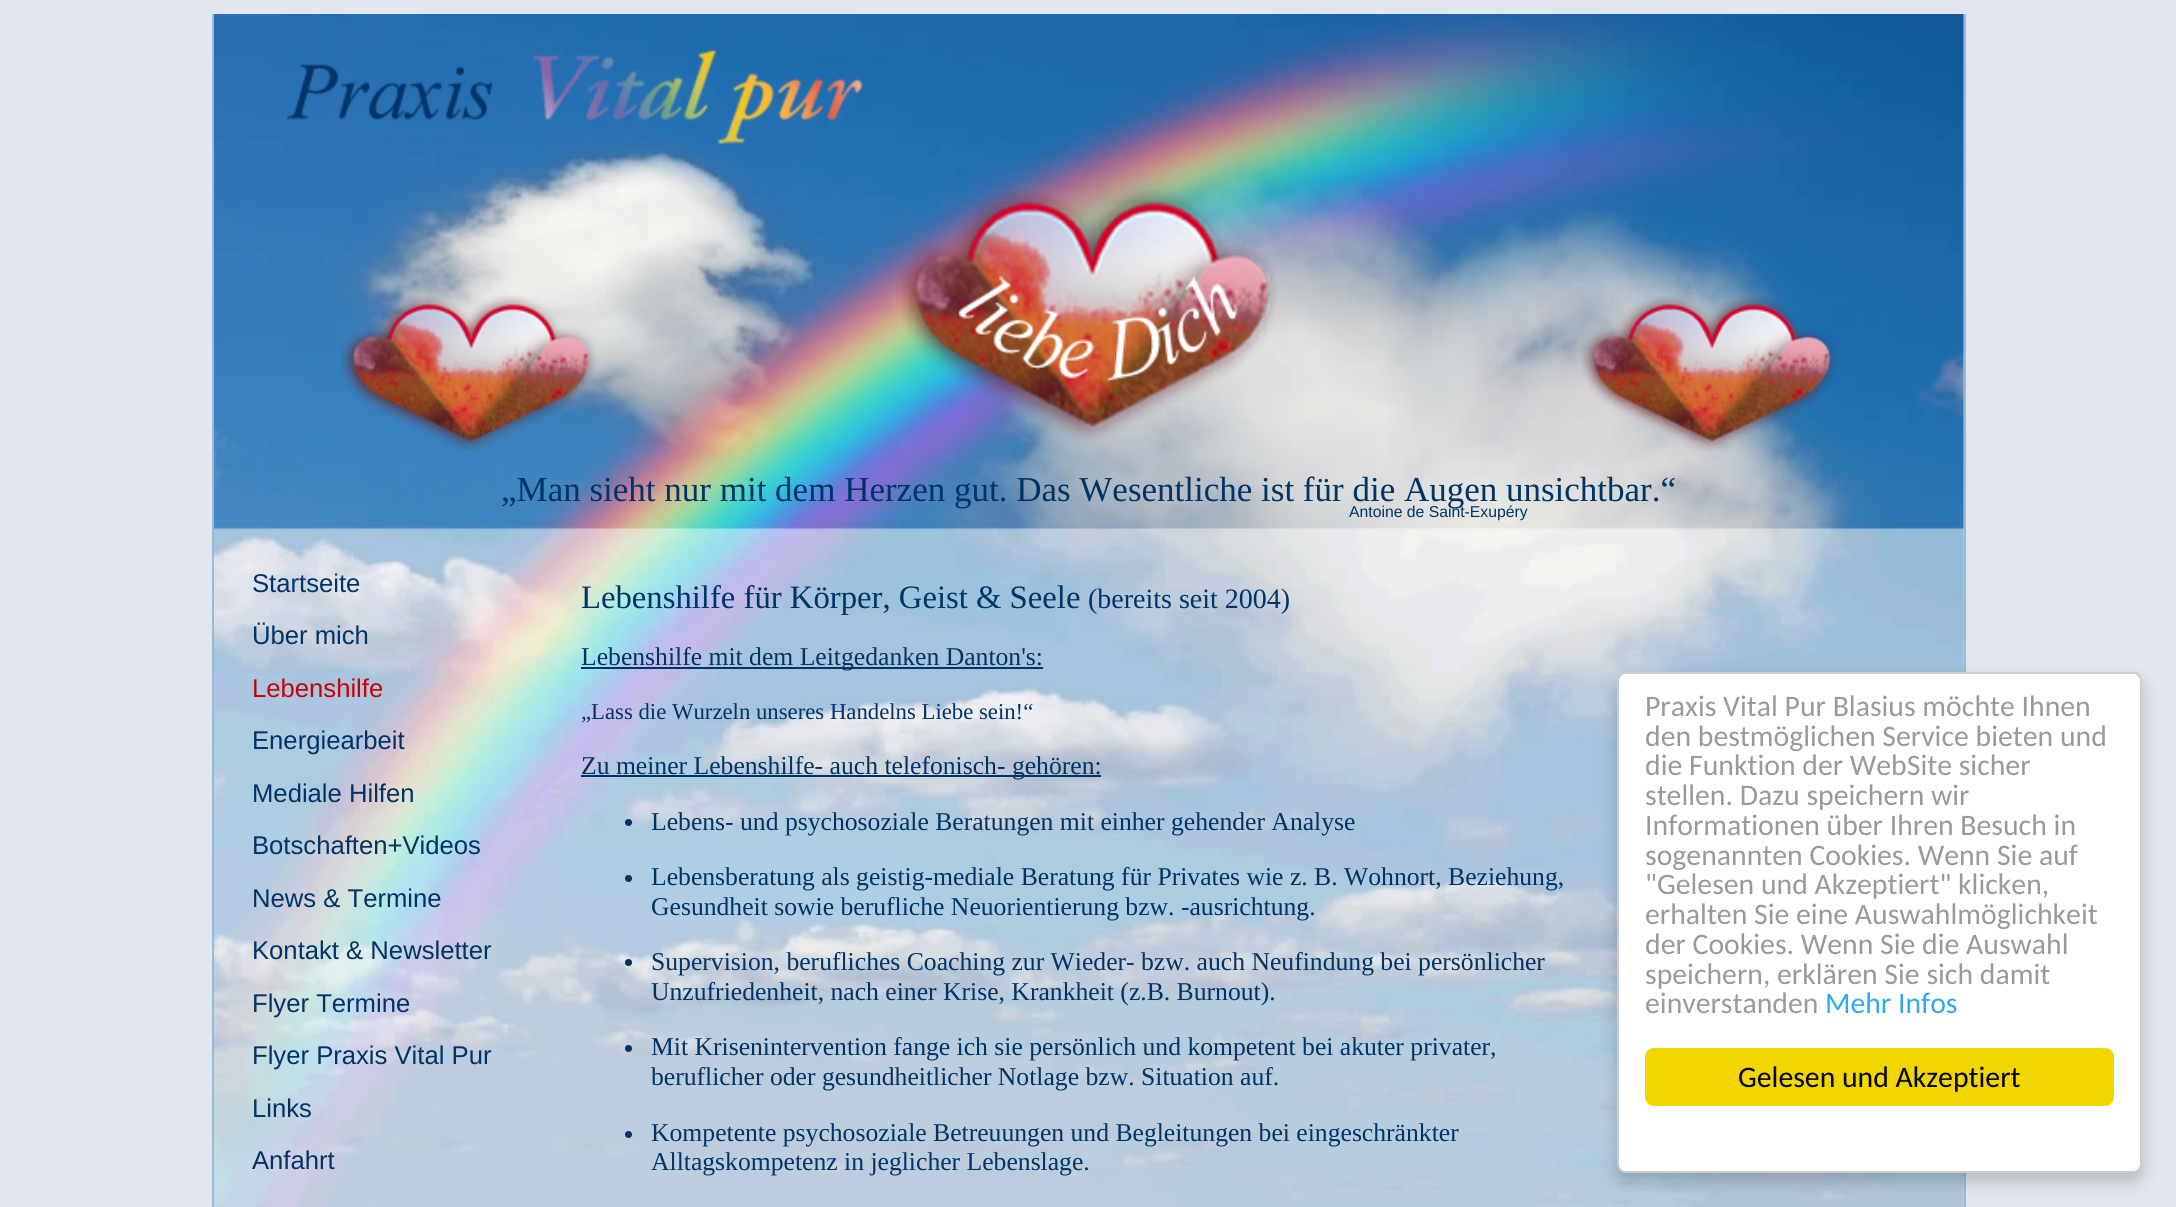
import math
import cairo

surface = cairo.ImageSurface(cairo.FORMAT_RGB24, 2176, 1207)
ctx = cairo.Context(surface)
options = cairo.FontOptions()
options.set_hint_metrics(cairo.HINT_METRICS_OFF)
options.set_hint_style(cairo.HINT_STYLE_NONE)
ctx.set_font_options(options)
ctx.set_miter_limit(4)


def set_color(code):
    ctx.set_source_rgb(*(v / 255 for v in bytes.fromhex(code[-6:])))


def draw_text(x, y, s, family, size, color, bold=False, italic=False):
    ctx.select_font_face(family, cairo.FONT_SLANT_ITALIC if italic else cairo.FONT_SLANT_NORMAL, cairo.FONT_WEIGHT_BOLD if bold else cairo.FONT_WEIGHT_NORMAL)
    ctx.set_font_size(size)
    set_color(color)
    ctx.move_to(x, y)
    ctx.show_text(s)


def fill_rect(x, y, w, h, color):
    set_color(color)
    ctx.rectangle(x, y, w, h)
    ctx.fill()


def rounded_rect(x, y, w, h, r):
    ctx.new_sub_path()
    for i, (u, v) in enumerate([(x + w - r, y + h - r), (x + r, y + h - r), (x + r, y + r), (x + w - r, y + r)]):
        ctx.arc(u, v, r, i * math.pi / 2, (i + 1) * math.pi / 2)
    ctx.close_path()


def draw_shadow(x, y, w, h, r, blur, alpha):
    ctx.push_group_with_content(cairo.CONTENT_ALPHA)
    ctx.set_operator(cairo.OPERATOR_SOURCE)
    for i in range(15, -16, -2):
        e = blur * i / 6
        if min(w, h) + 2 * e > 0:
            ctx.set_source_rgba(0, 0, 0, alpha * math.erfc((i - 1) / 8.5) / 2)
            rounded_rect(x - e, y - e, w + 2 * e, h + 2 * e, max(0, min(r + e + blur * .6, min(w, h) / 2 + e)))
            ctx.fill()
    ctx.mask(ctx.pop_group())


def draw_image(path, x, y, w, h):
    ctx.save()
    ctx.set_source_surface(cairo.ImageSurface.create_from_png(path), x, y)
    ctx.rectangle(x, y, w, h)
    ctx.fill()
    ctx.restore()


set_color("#e1e7ed")
ctx.paint()
fill_rect(1963, 14, 1, 1193, "#bdcede")
draw_image("assets/img1.png", 214, 14, 1750, 1193)
fill_rect(1964, 14, 2, 1193, "#94bbd8")
fill_rect(212, 14, 2, 1193, "#94bbd8")
draw_image("assets/img2.png", 286, 50, 577, 94)
draw_image("assets/img3.png", 340, 296, 256, 155)
draw_image("assets/img4.png", 896, 189, 383, 254)
draw_image("assets/img5.png", 1580, 296, 257, 155)
draw_text(501, 501, "„Man sieht nur mit dem Herzen gut. Das Wesentliche ist für die Augen unsichtbar.“", "Liberation Serif", 35, "#003366")
draw_text(1349, 517, "Antoine de Saint-Exupéry", "Liberation Sans", 15.75, "#003366")
draw_text(252, 592, "Startseite", "Liberation Sans", 25.65, "#003366")
draw_text(252, 644, "Über mich", "Liberation Sans", 25.65, "#003366")
draw_text(252, 697, "Lebenshilfe", "Liberation Sans", 25.65, "#cc0000")
draw_text(252, 749, "Energiearbeit", "Liberation Sans", 25.65, "#003366")
draw_text(252, 802, "Mediale Hilfen", "Liberation Sans", 25.65, "#003366")
draw_text(252, 854, "Botschaften+Videos", "Liberation Sans", 25.65, "#003366")
draw_text(252, 907, "News & Termine", "Liberation Sans", 25.65, "#003366")
draw_text(252, 959, "Kontakt & Newsletter", "Liberation Sans", 25.65, "#003366")
draw_text(252, 1012, "Flyer Termine", "Liberation Sans", 25.65, "#003366")
draw_text(252, 1064, "Flyer Praxis Vital Pur", "Liberation Sans", 25.65, "#003366")
draw_text(252, 1117, "Links", "Liberation Sans", 25.65, "#003366")
draw_text(252, 1169, "Anfahrt", "Liberation Sans", 25.65, "#003366")
draw_text(581, 608, "Lebenshilfe für Körper, Geist & Seele", "Liberation Serif", 32.7, "#003366")
draw_text(1088, 608, "(bereits seit 2004)", "Liberation Serif", 28, "#003366")
fill_rect(581, 667, 462, 2, "#003366")
draw_text(581, 665, "Lebenshilfe mit dem Leitgedanken Danton's:", "Liberation Serif", 25.65, "#003366")
draw_text(581, 719, "„Lass die Wurzeln unseres Handelns Liebe sein!“", "Liberation Serif", 22.75, "#003366")
fill_rect(581, 775, 520, 2, "#003366")
draw_text(581, 774, "Zu meiner Lebenshilfe- auch telefonisch- gehören:", "Liberation Serif", 25.65, "#003366")
ctx.new_path()
ctx.arc(628.5, 822.5, 3.5, 0, 2 * math.pi)
ctx.fill()
draw_text(651, 830, "Lebens- und psychosoziale Beratungen mit einher gehender Analyse", "Liberation Serif", 25.65, "#003366")
ctx.new_path()
ctx.arc(628.5, 878.5, 3.5, 0, 2 * math.pi)
ctx.fill()
draw_text(651, 885, "Lebensberatung als geistig-mediale Beratung für Privates wie z. B. Wohnort, Beziehung,", "Liberation Serif", 25.65, "#003366")
draw_text(651, 915, "Gesundheit sowie berufliche Neuorientierung bzw. -ausrichtung.", "Liberation Serif", 25.65, "#003366")
ctx.new_path()
ctx.arc(628.5, 962.5, 3.5, 0, 2 * math.pi)
ctx.fill()
draw_text(651, 970, "Supervision, berufliches Coaching zur Wieder- bzw. auch Neufindung bei persönlicher", "Liberation Serif", 25.65, "#003366")
draw_text(651, 1000, "Unzufriedenheit, nach einer Krise, Krankheit (z.B. Burnout).", "Liberation Serif", 25.65, "#003366")
ctx.new_path()
ctx.arc(628.5, 1048.5, 3.5, 0, 2 * math.pi)
ctx.fill()
draw_text(651, 1055, "Mit Krisenintervention fange ich sie persönlich und kompetent bei akuter privater,", "Liberation Serif", 25.65, "#003366")
draw_text(651, 1085, "beruflicher oder gesundheitlicher Notlage bzw. Situation auf.", "Liberation Serif", 25.65, "#003366")
ctx.new_path()
ctx.arc(628.5, 1134.5, 3.5, 0, 2 * math.pi)
ctx.fill()
draw_text(651, 1141, "Kompetente psychosoziale Betreuungen und Begleitungen bei eingeschränkter", "Liberation Serif", 25.65, "#003366")
draw_text(651, 1170, "Alltagskompetenz in jeglicher Lebenslage.", "Liberation Serif", 25.65, "#003366")
set_color("#000000")
draw_shadow(1617, 681, 525, 500, 9, 9, 0.2)
set_color("#ffffff")
rounded_rect(1618, 673, 523, 499, 8)
ctx.fill_preserve()
set_color("#cccccc")
ctx.stroke()
draw_text(1645, 716, "Praxis Vital Pur Blasius möchte Ihnen", "Carlito", 29.75, "#999999")
draw_text(1645, 746, "den bestmöglichen Service bieten und", "Carlito", 29.75, "#999999")
draw_text(1645, 775, "die Funktion der WebSite sicher", "Carlito", 29.75, "#999999")
draw_text(1645, 805, "stellen. Dazu speichern wir", "Carlito", 29.75, "#999999")
draw_text(1645, 835, "Informationen über Ihren Besuch in", "Carlito", 29.75, "#999999")
draw_text(1645, 865, "sogenannten Cookies. Wenn Sie auf", "Carlito", 29.75, "#999999")
draw_text(1645, 894, "\"Gelesen und Akzeptiert\" klicken,", "Carlito", 29.75, "#999999")
draw_text(1645, 924, "erhalten Sie eine Auswahlmöglichkeit", "Carlito", 29.75, "#999999")
draw_text(1645, 954, "der Cookies. Wenn Sie die Auswahl", "Carlito", 29.75, "#999999")
draw_text(1645, 984, "speichern, erklären Sie sich damit", "Carlito", 29.75, "#999999")
draw_text(1645, 1013, "einverstanden", "Carlito", 29.75, "#999999")
draw_text(1825, 1013, "Mehr Infos", "Carlito", 29.75, "#31a8f0")
set_color("#f1d600")
rounded_rect(1645, 1048, 469, 58, 9)
ctx.fill()
draw_text(1738, 1087, "Gelesen und Akzeptiert", "Carlito", 29.75, "#000000")
surface.write_to_png("output.png")
